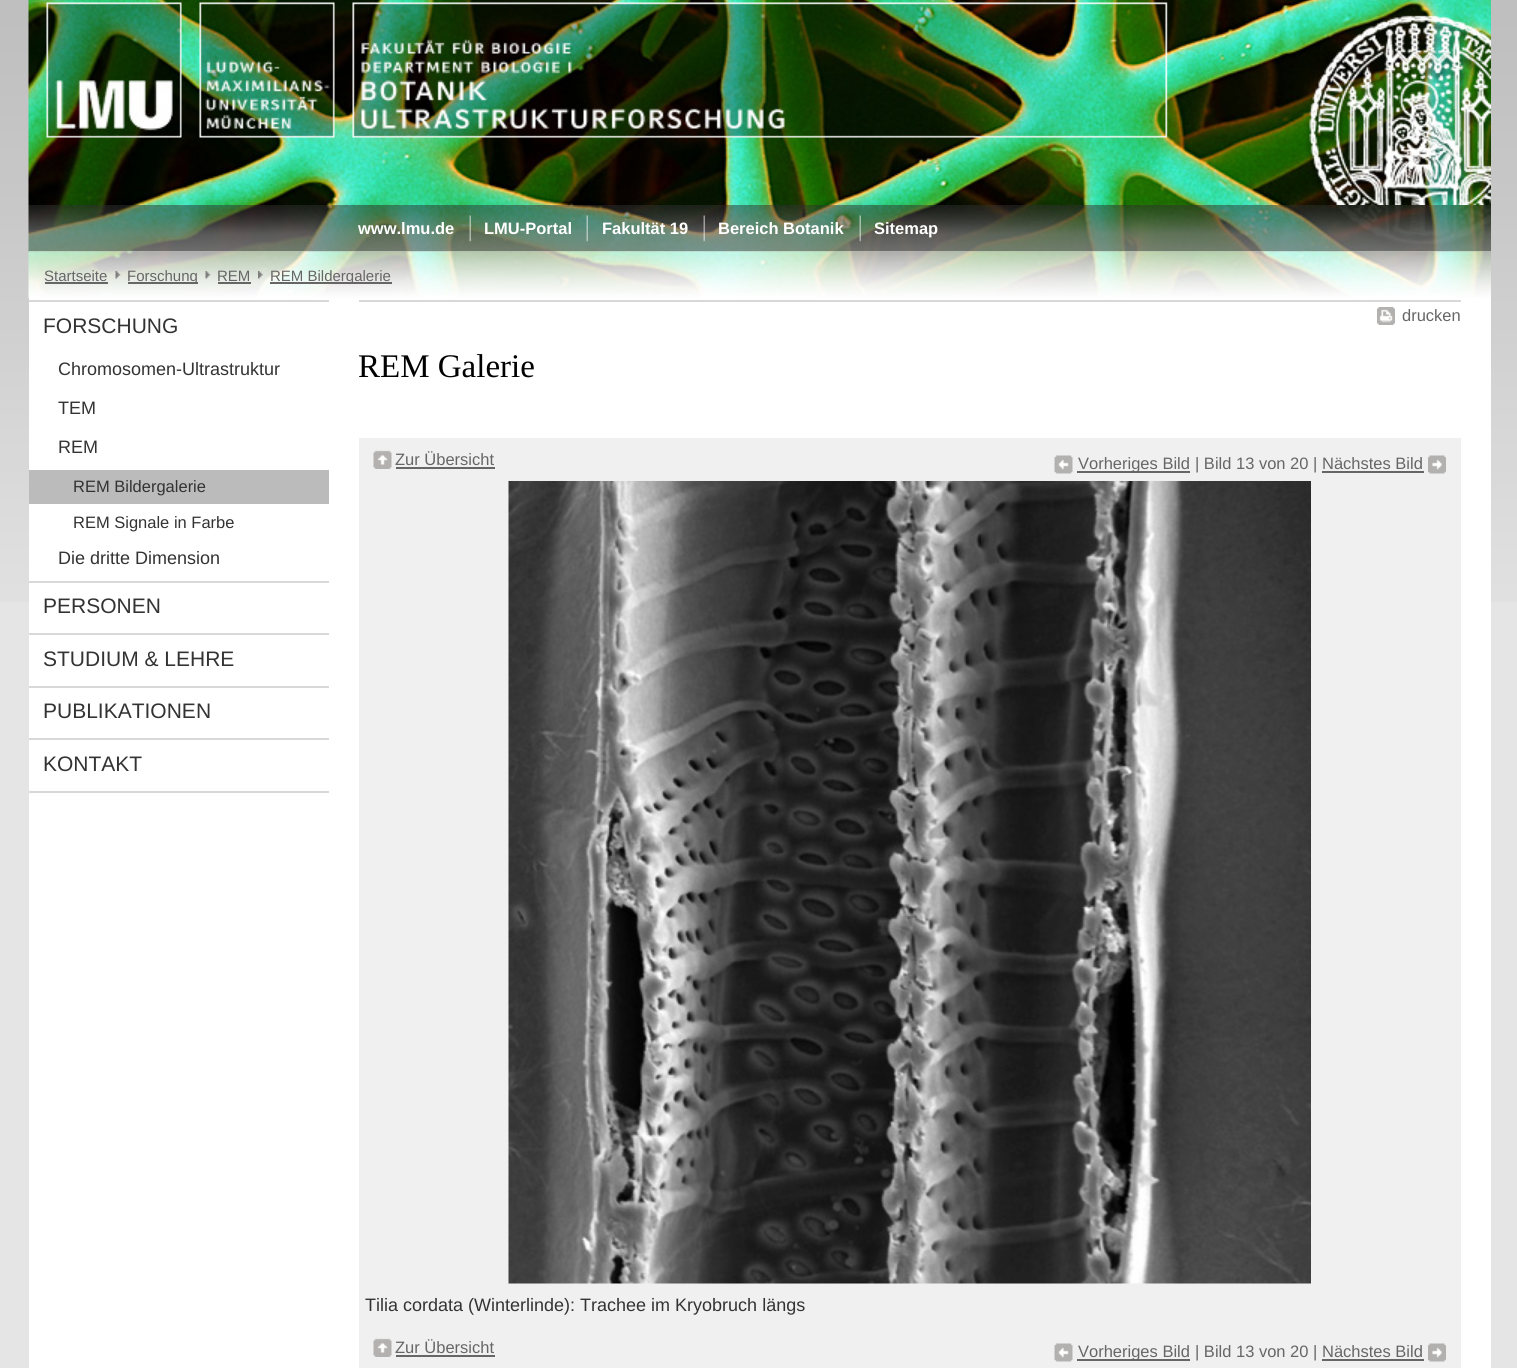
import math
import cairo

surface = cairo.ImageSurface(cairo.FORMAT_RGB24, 1517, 1368)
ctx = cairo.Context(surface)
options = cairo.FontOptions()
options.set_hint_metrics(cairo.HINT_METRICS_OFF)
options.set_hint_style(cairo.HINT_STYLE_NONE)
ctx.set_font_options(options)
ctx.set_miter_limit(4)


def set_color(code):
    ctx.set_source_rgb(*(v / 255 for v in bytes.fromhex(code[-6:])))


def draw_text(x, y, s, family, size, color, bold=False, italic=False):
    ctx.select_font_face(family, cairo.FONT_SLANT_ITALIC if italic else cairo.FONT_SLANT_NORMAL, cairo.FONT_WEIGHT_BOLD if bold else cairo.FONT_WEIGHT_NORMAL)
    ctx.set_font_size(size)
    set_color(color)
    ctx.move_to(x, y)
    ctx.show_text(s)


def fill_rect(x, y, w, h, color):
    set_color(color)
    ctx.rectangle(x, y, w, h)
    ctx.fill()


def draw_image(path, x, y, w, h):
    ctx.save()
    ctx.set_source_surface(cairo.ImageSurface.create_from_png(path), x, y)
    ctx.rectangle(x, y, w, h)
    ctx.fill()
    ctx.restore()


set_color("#e5e5e5")
ctx.paint()
draw_image("assets/img1.png", 0, 0, 1517, 602)
fill_rect(29, 251, 1462, 1117, "#ffffff")
draw_image("assets/img2.png", 28, 0, 1463, 205)
draw_image("assets/img3.png", 28, 205, 1463, 47)
draw_text(358, 234, "www.lmu.de", "Liberation Sans", 16.5, "#ffffff", bold=True)
draw_image("assets/img4.png", 469, 215, 2, 27)
draw_text(484, 234, "LMU-Portal", "Liberation Sans", 16.5, "#ffffff", bold=True)
draw_image("assets/img5.png", 586, 215, 2, 27)
draw_text(602, 234, "Fakultät 19", "Liberation Sans", 16.5, "#ffffff", bold=True)
draw_image("assets/img6.png", 703, 215, 2, 27)
draw_text(718, 234, "Bereich Botanik", "Liberation Sans", 16.5, "#ffffff", bold=True)
draw_image("assets/img7.png", 859, 215, 2, 27)
draw_text(874, 234, "Sitemap", "Liberation Sans", 16.5, "#ffffff", bold=True)
draw_image("assets/img8.png", 28, 251, 1463, 47)
draw_text(44, 281, "Startseite", "Liberation Sans", 15, "#666666")
fill_rect(45, 282, 63, 2, "#666666")
draw_image("assets/img9.png", 115, 271, 6, 8)
fill_rect(128, 282, 70, 2, "#666666")
draw_text(127, 281, "Forschung", "Liberation Sans", 15, "#666666")
draw_image("assets/img10.png", 205, 271, 6, 8)
draw_text(217, 281, "REM", "Liberation Sans", 15, "#666666")
fill_rect(218, 282, 33, 2, "#666666")
draw_image("assets/img11.png", 258, 271, 5, 8)
fill_rect(270, 282, 122, 2, "#666666")
draw_text(270, 281, "REM Bildergalerie", "Liberation Sans", 15, "#666666")
fill_rect(29, 300, 300, 2, "#d8d8d8")
fill_rect(29, 581, 300, 2, "#d8d8d8")
draw_text(43, 333, "FORSCHUNG", "Liberation Sans", 21, "#333333")
draw_text(58, 375, "Chromosomen-Ultrastruktur", "Liberation Sans", 18, "#333333")
draw_text(58, 414, "TEM", "Liberation Sans", 18, "#333333")
draw_text(58, 453, "REM", "Liberation Sans", 18, "#333333")
fill_rect(29, 470, 300, 34, "#bbbbbb")
draw_text(73, 492, "REM Bildergalerie", "Liberation Sans", 16.5, "#333333")
draw_text(73, 528, "REM Signale in Farbe", "Liberation Sans", 16.5, "#333333")
draw_text(58, 564, "Die dritte Dimension", "Liberation Sans", 18, "#333333")
fill_rect(29, 633, 300, 2, "#d8d8d8")
draw_text(43, 613, "PERSONEN", "Liberation Sans", 21, "#333333")
fill_rect(29, 686, 300, 2, "#d8d8d8")
draw_text(43, 666, "STUDIUM & LEHRE", "Liberation Sans", 21, "#333333")
fill_rect(29, 738, 300, 2, "#d8d8d8")
draw_text(43, 718, "PUBLIKATIONEN", "Liberation Sans", 21, "#333333")
fill_rect(29, 791, 300, 2, "#d8d8d8")
draw_text(43, 771, "KONTAKT", "Liberation Sans", 21, "#333333")
fill_rect(359, 300, 1102, 2, "#d8d8d8")
draw_image("assets/img12.png", 1377, 307, 18, 18)
draw_text(1402, 321, "drucken", "Liberation Sans", 16.5, "#666666")
draw_text(358, 377, "REM Galerie", "Liberation Serif", 33, "#000000")
fill_rect(359, 438, 1102, 930, "#f0f0f0")
draw_image("assets/img13.png", 373, 450, 19, 19)
draw_text(395, 465, "Zur Übersicht", "Liberation Sans", 16.5, "#666666")
fill_rect(396, 467, 99, 2, "#666666")
draw_image("assets/img14.png", 1054, 455, 19, 19)
fill_rect(1077, 471, 113, 2, "#666666")
draw_text(1078, 469, "Vorheriges Bild", "Liberation Sans", 16.5, "#666666")
draw_text(1195, 469, "| Bild 13 von 20 |", "Liberation Sans", 16.5, "#666666")
draw_text(1322, 469, "Nächstes Bild", "Liberation Sans", 16.5, "#666666")
fill_rect(1322, 471, 102, 2, "#666666")
draw_image("assets/img15.png", 1428, 455, 18, 19)
draw_image("assets/img16.png", 508, 481, 803, 803)
draw_text(365, 1311, "Tilia cordata (Winterlinde): Trachee im Kryobruch längs", "Liberation Sans", 18, "#333333")
draw_image("assets/img13.png", 373, 1338, 19, 19)
draw_text(395, 1353, "Zur Übersicht", "Liberation Sans", 16.5, "#666666")
fill_rect(396, 1355, 99, 2, "#666666")
draw_image("assets/img14.png", 1054, 1343, 19, 19)
fill_rect(1077, 1359, 113, 2, "#666666")
draw_text(1078, 1357, "Vorheriges Bild", "Liberation Sans", 16.5, "#666666")
draw_text(1195, 1357, "| Bild 13 von 20 |", "Liberation Sans", 16.5, "#666666")
draw_text(1322, 1357, "Nächstes Bild", "Liberation Sans", 16.5, "#666666")
fill_rect(1322, 1359, 102, 2, "#666666")
draw_image("assets/img15.png", 1428, 1343, 18, 19)
surface.write_to_png("output.png")
